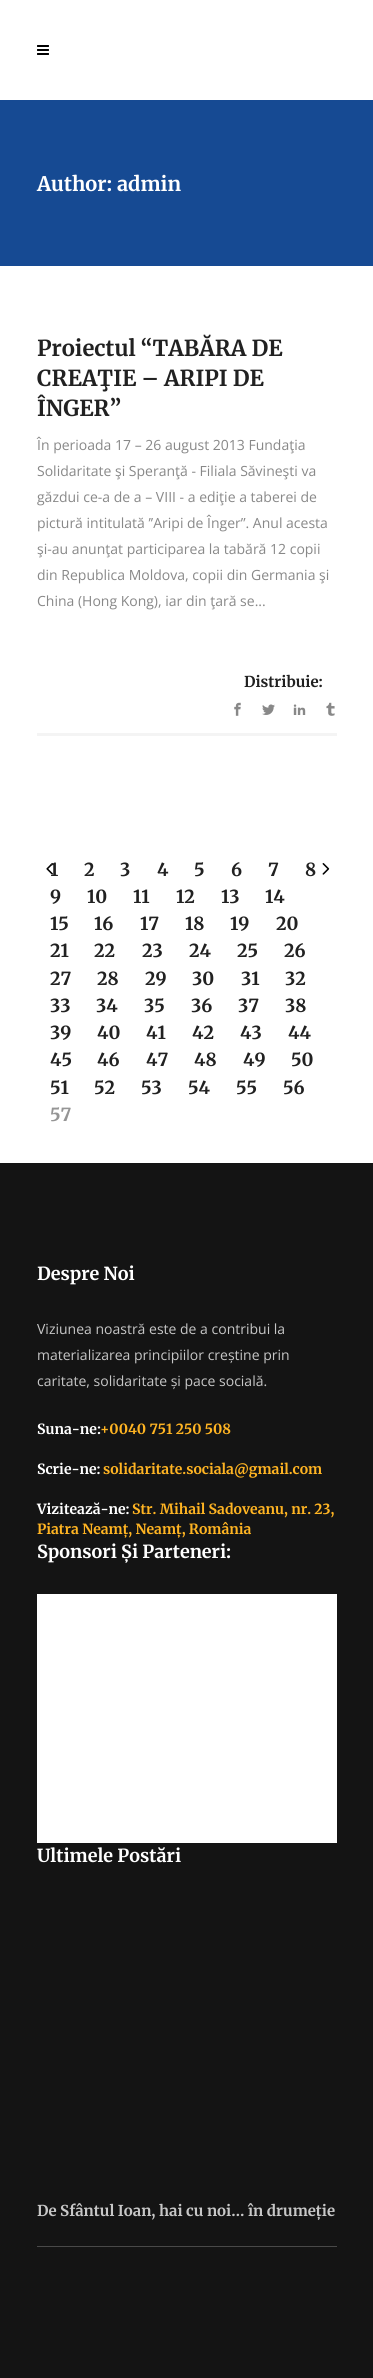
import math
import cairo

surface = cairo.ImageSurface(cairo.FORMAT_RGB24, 373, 2378)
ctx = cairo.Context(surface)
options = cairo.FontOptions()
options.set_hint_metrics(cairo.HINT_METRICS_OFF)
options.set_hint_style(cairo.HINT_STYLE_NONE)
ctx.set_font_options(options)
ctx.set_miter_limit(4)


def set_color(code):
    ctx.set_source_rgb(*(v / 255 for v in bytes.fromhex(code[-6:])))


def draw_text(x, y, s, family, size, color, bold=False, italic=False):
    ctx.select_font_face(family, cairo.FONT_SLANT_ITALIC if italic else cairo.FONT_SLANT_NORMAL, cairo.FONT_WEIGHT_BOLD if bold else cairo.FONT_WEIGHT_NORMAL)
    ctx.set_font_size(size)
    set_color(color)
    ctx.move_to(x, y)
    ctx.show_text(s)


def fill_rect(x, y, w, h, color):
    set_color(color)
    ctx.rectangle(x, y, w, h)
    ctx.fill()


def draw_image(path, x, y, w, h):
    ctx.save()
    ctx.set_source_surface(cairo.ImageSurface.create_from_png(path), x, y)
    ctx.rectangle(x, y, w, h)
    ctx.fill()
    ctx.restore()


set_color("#ffffff")
ctx.paint()
draw_image("assets/img1.png", 37, 45, 12, 10)
fill_rect(0, 100, 373, 166, "#164a93")
draw_text(37, 191, "Author: admin", "Merriweather", 20, "#ffffff", bold=True)
fill_rect(37, 733, 300, 3, "#f4f4f4")
draw_text(37, 356, "Proiectul “TABĂRA DE", "Merriweather", 22, "#212121", bold=True)
draw_text(37, 386, "CREAŢIE – ARIPI DE", "Merriweather", 22, "#212121", bold=True)
draw_text(37, 416, "ÎNGER”", "Merriweather", 22, "#212121", bold=True)
draw_text(37, 450, "În perioada 17 – 26 august 2013 Fundaţia", "Open Sans", 14, "#888888")
draw_text(37, 476, "Solidaritate şi Speranţă - Filiala Săvineşti va", "Open Sans", 14, "#888888")
draw_text(37, 502, "găzdui ce-a de a – VIII - a ediţie a taberei de", "Open Sans", 14, "#888888")
draw_text(37, 528, "pictură intitulată ’’Aripi de Înger’’. Anul acesta", "Open Sans", 14, "#888888")
draw_text(37, 554, "şi-au anunţat participarea la tabără 12 copii", "Open Sans", 14, "#888888")
draw_text(37, 580, "din Republica Moldova, copii din Germania şi", "Open Sans", 14, "#888888")
draw_text(37, 606, "China (Hong Kong), iar din ţară se...", "Open Sans", 14, "#888888")
draw_text(244, 687, "Distribuie:", "Merriweather", 15, "#212121", bold=True)
draw_image("assets/img2.png", 234, 702, 7, 14)
draw_image("assets/img3.png", 262, 704, 13, 11)
draw_image("assets/img4.png", 293, 704, 13, 11)
draw_image("assets/img5.png", 326, 702, 9, 14)
draw_image("assets/img6.png", 46, 863, 7, 12)
draw_text(50, 876, "1", "Merriweather", 18, "#212121", bold=True)
draw_text(84, 876, "2", "Merriweather", 18, "#212121", bold=True)
draw_text(120, 876, "3", "Merriweather", 18, "#212121", bold=True)
draw_text(157, 876, "4", "Merriweather", 18, "#212121", bold=True)
draw_text(194, 876, "5", "Merriweather", 18, "#212121", bold=True)
draw_text(231, 876, "6", "Merriweather", 18, "#212121", bold=True)
draw_text(268, 876, "7", "Merriweather", 18, "#212121", bold=True)
draw_text(305, 876, "8", "Merriweather", 18, "#212121", bold=True)
draw_image("assets/img7.png", 322, 863, 8, 12)
draw_text(50, 903, "9", "Merriweather", 18, "#212121", bold=True)
draw_text(87, 903, "10", "Merriweather", 18, "#212121", bold=True)
draw_text(133, 903, "11", "Merriweather", 18, "#212121", bold=True)
draw_text(176, 903, "12", "Merriweather", 18, "#212121", bold=True)
draw_text(221, 903, "13", "Merriweather", 18, "#212121", bold=True)
draw_text(265, 903, "14", "Merriweather", 18, "#212121", bold=True)
draw_text(50, 930, "15", "Merriweather", 18, "#212121", bold=True)
draw_text(94, 930, "16", "Merriweather", 18, "#212121", bold=True)
draw_text(140, 930, "17", "Merriweather", 18, "#212121", bold=True)
draw_text(185, 930, "18", "Merriweather", 18, "#212121", bold=True)
draw_text(230, 930, "19", "Merriweather", 18, "#212121", bold=True)
draw_text(276, 930, "20", "Merriweather", 18, "#212121", bold=True)
draw_text(50, 957, "21", "Merriweather", 18, "#212121", bold=True)
draw_text(94, 957, "22", "Merriweather", 18, "#212121", bold=True)
draw_text(142, 957, "23", "Merriweather", 18, "#212121", bold=True)
draw_text(189, 957, "24", "Merriweather", 18, "#212121", bold=True)
draw_text(237, 957, "25", "Merriweather", 18, "#212121", bold=True)
draw_text(284, 957, "26", "Merriweather", 18, "#212121", bold=True)
draw_text(50, 985, "27", "Merriweather", 18, "#212121", bold=True)
draw_text(97, 985, "28", "Merriweather", 18, "#212121", bold=True)
draw_text(145, 985, "29", "Merriweather", 18, "#212121", bold=True)
draw_text(192, 985, "30", "Merriweather", 18, "#212121", bold=True)
draw_text(241, 985, "31", "Merriweather", 18, "#212121", bold=True)
draw_text(285, 985, "32", "Merriweather", 18, "#212121", bold=True)
draw_text(50, 1012, "33", "Merriweather", 18, "#212121", bold=True)
draw_text(96, 1012, "34", "Merriweather", 18, "#212121", bold=True)
draw_text(144, 1012, "35", "Merriweather", 18, "#212121", bold=True)
draw_text(191, 1012, "36", "Merriweather", 18, "#212121", bold=True)
draw_text(238, 1012, "37", "Merriweather", 18, "#212121", bold=True)
draw_text(285, 1012, "38", "Merriweather", 18, "#212121", bold=True)
draw_text(50, 1039, "39", "Merriweather", 18, "#212121", bold=True)
draw_text(97, 1039, "40", "Merriweather", 18, "#212121", bold=True)
draw_text(146, 1039, "41", "Merriweather", 18, "#212121", bold=True)
draw_text(192, 1039, "42", "Merriweather", 18, "#212121", bold=True)
draw_text(240, 1039, "43", "Merriweather", 18, "#212121", bold=True)
draw_text(288, 1039, "44", "Merriweather", 18, "#212121", bold=True)
draw_text(50, 1066, "45", "Merriweather", 18, "#212121", bold=True)
draw_text(97, 1066, "46", "Merriweather", 18, "#212121", bold=True)
draw_text(146, 1066, "47", "Merriweather", 18, "#212121", bold=True)
draw_text(194, 1066, "48", "Merriweather", 18, "#212121", bold=True)
draw_text(243, 1066, "49", "Merriweather", 18, "#212121", bold=True)
draw_text(291, 1066, "50", "Merriweather", 18, "#212121", bold=True)
draw_text(50, 1094, "51", "Merriweather", 18, "#212121", bold=True)
draw_text(94, 1094, "52", "Merriweather", 18, "#212121", bold=True)
draw_text(141, 1094, "53", "Merriweather", 18, "#212121", bold=True)
draw_text(188, 1094, "54", "Merriweather", 18, "#212121", bold=True)
draw_text(236, 1094, "55", "Merriweather", 18, "#212121", bold=True)
draw_text(283, 1094, "56", "Merriweather", 18, "#212121", bold=True)
draw_text(50, 1121, "57", "Merriweather", 18, "#959595", bold=True)
fill_rect(0, 1163, 373, 1215, "#141414")
draw_text(37, 1280, "Despre Noi", "Merriweather", 18, "#ffffff", bold=True)
draw_text(37, 1334, "Viziunea noastră este de a contribui la", "Open Sans", 14, "#c7c7c7")
draw_text(37, 1360, "materializarea principiilor creștine prin", "Open Sans", 14, "#c7c7c7")
draw_text(37, 1386, "caritate, solidaritate și pace socială.", "Open Sans", 14, "#c7c7c7")
draw_text(37, 1434, "Suna-ne:", "Merriweather", 14, "#ffffff", bold=True)
draw_text(100, 1434, "+0040 751 250 508", "Merriweather", 14, "#ffb422", bold=True)
draw_text(37, 1474, "Scrie-ne:", "Merriweather", 14, "#ffffff", bold=True)
draw_text(103, 1474, "solidaritate.sociala@gmail.com", "Merriweather", 14, "#ffb422", bold=True)
draw_text(37, 1514, "Vizitează-ne:", "Merriweather", 14, "#ffffff", bold=True)
draw_text(132, 1514, "Str. Mihail Sadoveanu, nr. 23,", "Merriweather", 14, "#ffb422", bold=True)
draw_text(37, 1534, "Piatra Neamț, Neamț, România", "Merriweather", 14, "#ffb422", bold=True)
draw_text(37, 1558, "Sponsori Și Parteneri:", "Merriweather", 18, "#ffffff", bold=True)
fill_rect(37, 1594, 300, 249, "#ffffff")
draw_text(37, 1862, "Ultimele Postări", "Merriweather", 18, "#ffffff", bold=True)
fill_rect(37, 2246, 300, 1, "#494949")
draw_text(37, 2216, "De Sfântul Ioan, hai cu noi… în drumeție", "Merriweather", 15, "#c7c7c7", bold=True)
surface.write_to_png("output.png")
